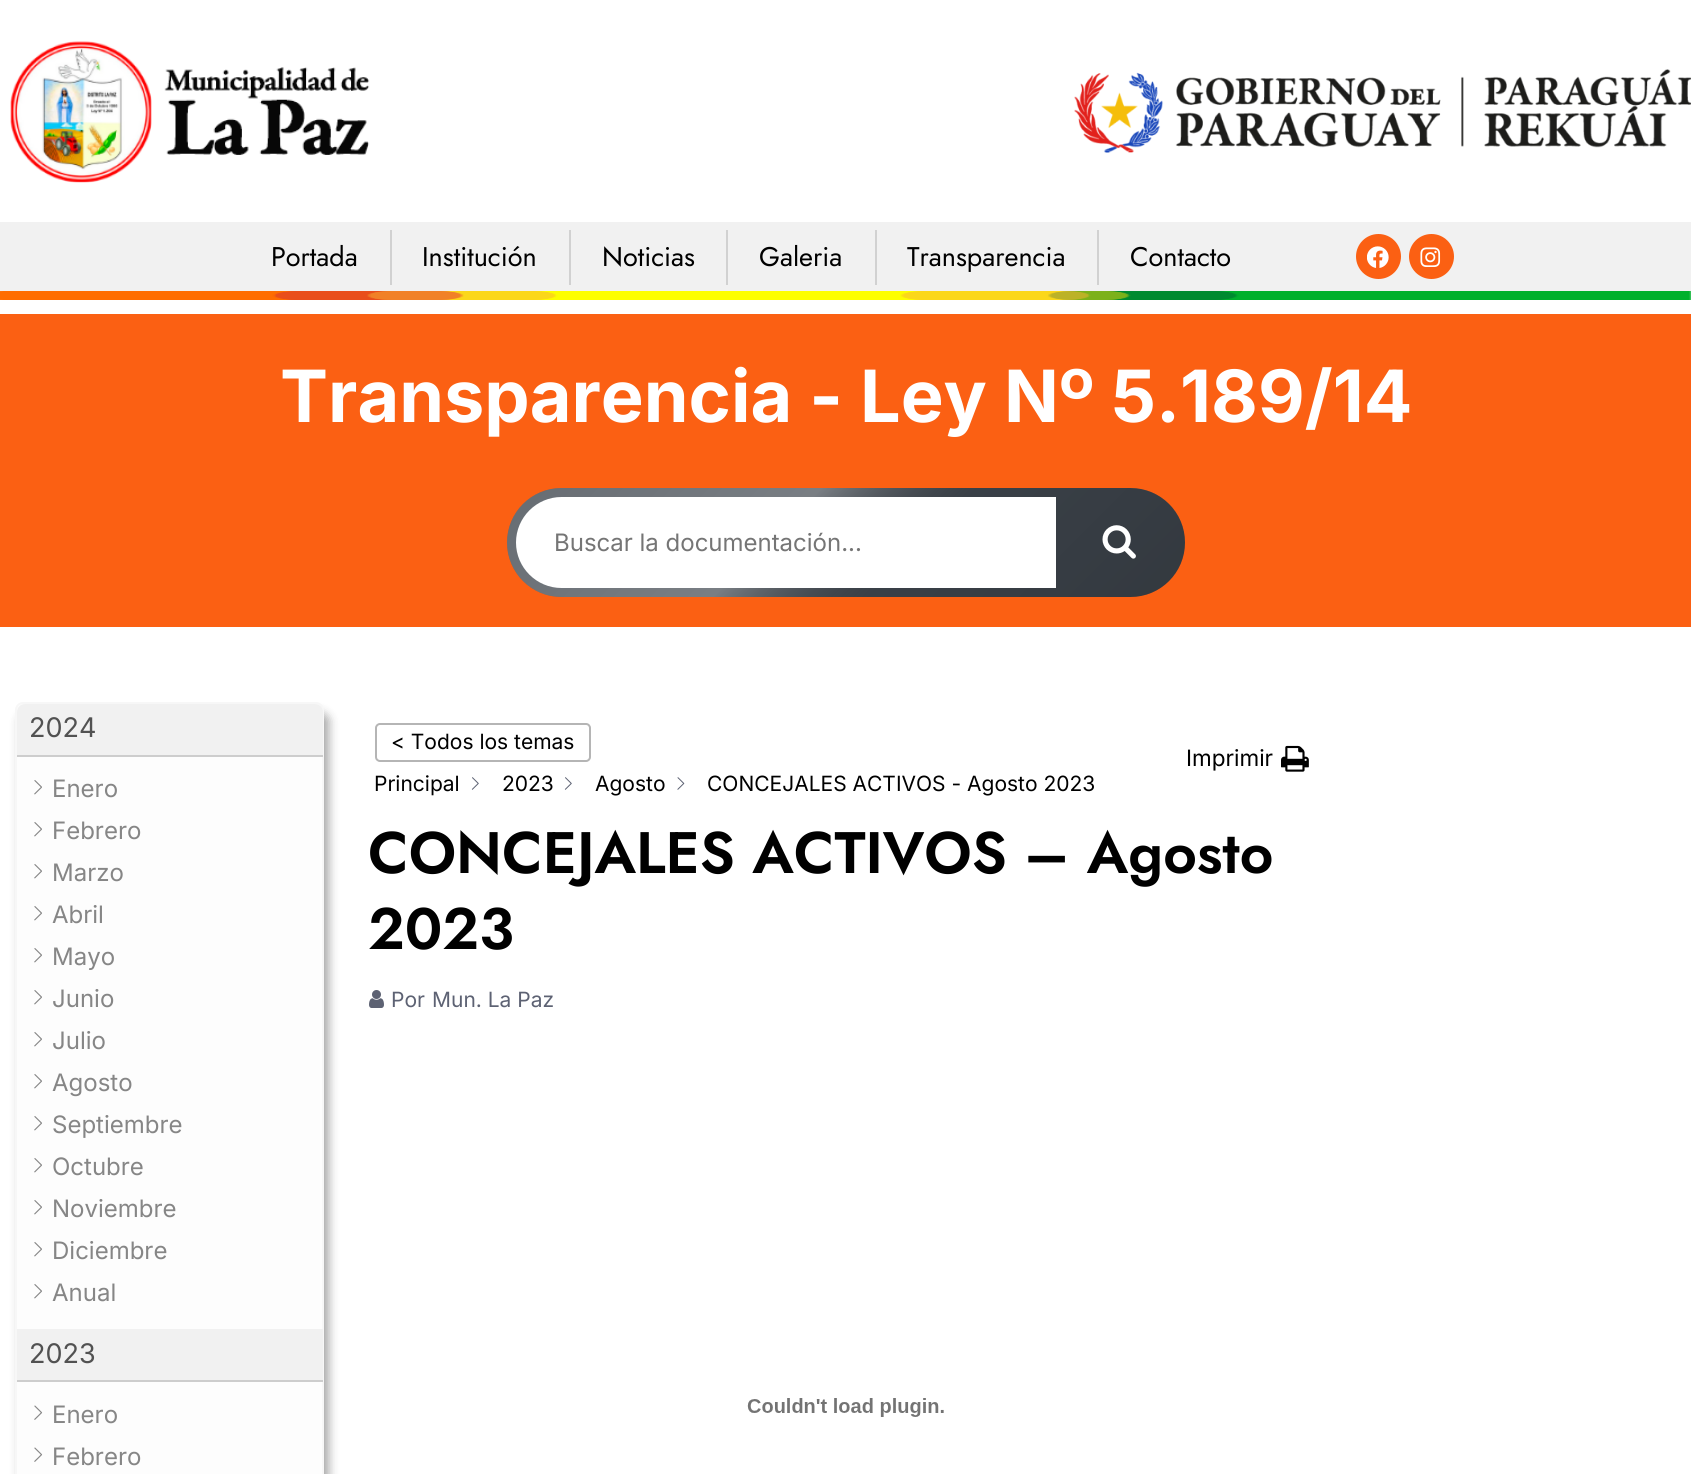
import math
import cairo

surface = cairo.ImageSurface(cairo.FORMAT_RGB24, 1691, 1474)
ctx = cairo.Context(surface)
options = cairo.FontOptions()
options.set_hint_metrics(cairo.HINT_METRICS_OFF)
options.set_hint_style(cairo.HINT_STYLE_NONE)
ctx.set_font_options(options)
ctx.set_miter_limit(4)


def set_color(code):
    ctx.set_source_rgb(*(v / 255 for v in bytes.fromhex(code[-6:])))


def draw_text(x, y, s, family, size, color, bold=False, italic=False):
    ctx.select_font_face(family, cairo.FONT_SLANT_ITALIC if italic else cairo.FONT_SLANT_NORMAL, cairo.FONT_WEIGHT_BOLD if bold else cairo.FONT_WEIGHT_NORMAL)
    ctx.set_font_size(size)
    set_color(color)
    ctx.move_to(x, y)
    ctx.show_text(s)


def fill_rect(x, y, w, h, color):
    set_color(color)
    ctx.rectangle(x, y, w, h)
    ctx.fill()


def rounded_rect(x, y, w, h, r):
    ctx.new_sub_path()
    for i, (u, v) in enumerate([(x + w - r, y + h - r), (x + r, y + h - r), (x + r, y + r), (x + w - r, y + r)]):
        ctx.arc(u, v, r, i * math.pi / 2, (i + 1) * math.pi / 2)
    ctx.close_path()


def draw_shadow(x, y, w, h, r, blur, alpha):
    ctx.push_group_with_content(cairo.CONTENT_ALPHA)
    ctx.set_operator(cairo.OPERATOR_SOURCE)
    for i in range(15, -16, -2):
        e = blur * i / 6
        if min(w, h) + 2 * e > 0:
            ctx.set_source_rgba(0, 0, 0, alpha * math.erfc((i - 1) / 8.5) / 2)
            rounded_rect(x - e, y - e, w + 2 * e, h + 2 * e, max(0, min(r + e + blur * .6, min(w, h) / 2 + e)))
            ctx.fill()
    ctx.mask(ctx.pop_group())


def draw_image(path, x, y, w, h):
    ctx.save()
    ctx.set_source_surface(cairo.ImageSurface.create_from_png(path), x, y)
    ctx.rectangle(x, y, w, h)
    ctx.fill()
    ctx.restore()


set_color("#ffffff")
ctx.paint()
draw_image("assets/img1.png", 10, 41, 360, 142)
draw_image("assets/img2.png", 1074, 69, 617, 84)
fill_rect(0, 222, 1691, 69, "#f1f1f1")
draw_text(271, 266, "Portada", "Jost", 27, "#000000")
fill_rect(390, 230, 2, 55, "#d1d1d1")
draw_text(422, 266, "Institución", "Jost", 27, "#000000")
fill_rect(569, 230, 2, 55, "#d1d1d1")
draw_text(602, 266, "Noticias", "Jost", 27, "#000000")
fill_rect(726, 230, 2, 55, "#d1d1d1")
draw_text(759, 266, "Galeria", "Jost", 27, "#000000")
fill_rect(875, 230, 2, 55, "#d1d1d1")
draw_text(907, 266, "Transparencia", "Jost", 27, "#000000")
fill_rect(1097, 230, 2, 55, "#d1d1d1")
draw_text(1130, 266, "Contacto", "Jost", 27, "#000000")
set_color("#fb6013")
ctx.new_path()
ctx.arc(1378.5, 256.5, 22.5, 0, 2 * math.pi)
ctx.fill()
draw_image("assets/img3.png", 1367, 246, 22, 22)
ctx.arc(1431.5, 256.5, 22.5, 0, 2 * math.pi)
ctx.fill()
draw_image("assets/img4.png", 1420, 247, 21, 20)
draw_image("assets/img5.png", 0, 291, 1691, 9)
fill_rect(0, 314, 1691, 313, "#fb6013")
draw_text(280, 422, "Transparencia - Ley Nº 5.189/14", "Inter", 72, "#ffffff", bold=True)
set_color("#40474f")
rounded_rect(507, 488, 678, 109, 54.5)
ctx.fill()
gradient = cairo.LinearGradient(649, 345, 1043, 739)
gradient.add_color_stop_rgba(0, 1, 1, 1, 0.2)
gradient.add_color_stop_rgba(0.4, 1, 1, 1, 0.3)
gradient.add_color_stop_rgba(0.6, 0, 0, 0, 0.1)
gradient.add_color_stop_rgba(1, 0, 0, 0, 0.2)
ctx.set_source(gradient)
rounded_rect(507, 488, 678, 109, 54.5)
ctx.fill()
set_color("#ffffff")
ctx.new_path()
ctx.move_to(561.5, 497)
ctx.line_to(1056, 497)
ctx.line_to(1056, 588)
ctx.line_to(561.5, 588)
ctx.curve_to(536.5, 588, 516, 567.5, 516, 542.5)
ctx.curve_to(516, 517.5, 536.5, 497, 561.5, 497)
ctx.close_path()
ctx.fill()
draw_text(554, 551, "Buscar la documentación...", "Inter", 24, "#757575")
draw_image("assets/img6.png", 1102, 525, 34, 34)
set_color("#000000")
draw_shadow(20, 713, 309, 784, 8, 5, 0.34)
set_color("#fdfdfd")
rounded_rect(16, 703, 307, 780, 7)
ctx.fill_preserve()
set_color("#f7f7f7")
ctx.stroke()
set_color("#f1f1f1")
ctx.new_path()
ctx.move_to(25, 704)
ctx.line_to(315, 704)
ctx.curve_to(319.5, 704, 323, 707.5, 323, 712)
ctx.line_to(323, 756)
ctx.line_to(17, 756)
ctx.line_to(17, 712)
ctx.curve_to(17, 707.5, 20.5, 704, 25, 704)
ctx.close_path()
ctx.fill()
fill_rect(17, 755, 306, 2, "#cdcdcd")
draw_text(29, 737, "2024", "Inter", 27, "#525252")
draw_image("assets/img7.png", 34, 780, 8, 15)
draw_text(52, 797, "Enero", "Inter", 24, "#868686")
draw_image("assets/img7.png", 34, 822, 8, 15)
draw_text(52, 839, "Febrero", "Inter", 24, "#868686")
draw_image("assets/img7.png", 34, 864, 8, 15)
draw_text(52, 881, "Marzo", "Inter", 24, "#868686")
draw_image("assets/img7.png", 34, 906, 8, 15)
draw_text(52, 923, "Abril", "Inter", 24, "#868686")
draw_image("assets/img7.png", 34, 948, 8, 15)
draw_text(52, 965, "Mayo", "Inter", 24, "#868686")
draw_image("assets/img7.png", 34, 990, 8, 15)
draw_text(52, 1007, "Junio", "Inter", 24, "#868686")
draw_image("assets/img7.png", 34, 1032, 8, 15)
draw_text(52, 1049, "Julio", "Inter", 24, "#868686")
draw_image("assets/img7.png", 34, 1074, 8, 15)
draw_text(52, 1091, "Agosto", "Inter", 24, "#868686")
draw_image("assets/img7.png", 34, 1116, 8, 15)
draw_text(52, 1133, "Septiembre", "Inter", 24, "#868686")
draw_image("assets/img7.png", 34, 1158, 8, 15)
draw_text(52, 1175, "Octubre", "Inter", 24, "#868686")
draw_image("assets/img7.png", 34, 1200, 8, 15)
draw_text(52, 1217, "Noviembre", "Inter", 24, "#868686")
draw_image("assets/img7.png", 34, 1242, 8, 15)
draw_text(52, 1259, "Diciembre", "Inter", 24, "#868686")
draw_image("assets/img7.png", 34, 1284, 8, 15)
draw_text(52, 1301, "Anual", "Inter", 24, "#868686")
fill_rect(17, 1329, 306, 51, "#f1f1f1")
fill_rect(17, 1380, 306, 2, "#cdcdcd")
draw_text(29, 1363, "2023", "Inter", 27, "#525252")
draw_image("assets/img8.png", 34, 1405, 9, 15)
draw_text(52, 1423, "Enero", "Inter", 24, "#868686")
draw_image("assets/img8.png", 34, 1447, 9, 15)
draw_text(52, 1465, "Febrero", "Inter", 24, "#868686")
rounded_rect(376, 724, 214, 37, 4)
set_color("#b5b5b5")
ctx.stroke()
draw_text(391, 749, "< Todos los temas", "Inter", 21, "#000000")
draw_text(374, 791, "Principal", "Inter", 21, "#000000")
draw_image("assets/img9.png", 471, 777, 8, 13)
draw_text(502, 791, "2023", "Inter", 21, "#000000")
draw_image("assets/img9.png", 564, 777, 8, 13)
draw_text(595, 791, "Agosto", "Inter", 21, "#000000")
draw_image("assets/img10.png", 677, 777, 8, 13)
draw_text(707, 791, "CONCEJALES ACTIVOS - Agosto 2023", "Inter", 21, "#000000")
draw_text(1186, 766, "Imprimir", "Inter", 22.5, "#000000")
draw_image("assets/img11.png", 1281, 745, 28, 27)
draw_text(368, 873, "CONCEJALES ACTIVOS – Agosto", "Jost SemiBold", 58.4, "#000000")
draw_text(368, 949, "2023", "Jost SemiBold", 58.4, "#000000")
draw_image("assets/img12.png", 369, 990, 15, 18)
draw_text(391, 1007, "Por", "Inter", 21, "#5d6273")
draw_text(432, 1007, "Mun. La Paz", "Inter", 21, "#5d6273")
draw_image("assets/img13.png", 747, 1398, 197, 19)
surface.write_to_png("output.png")
